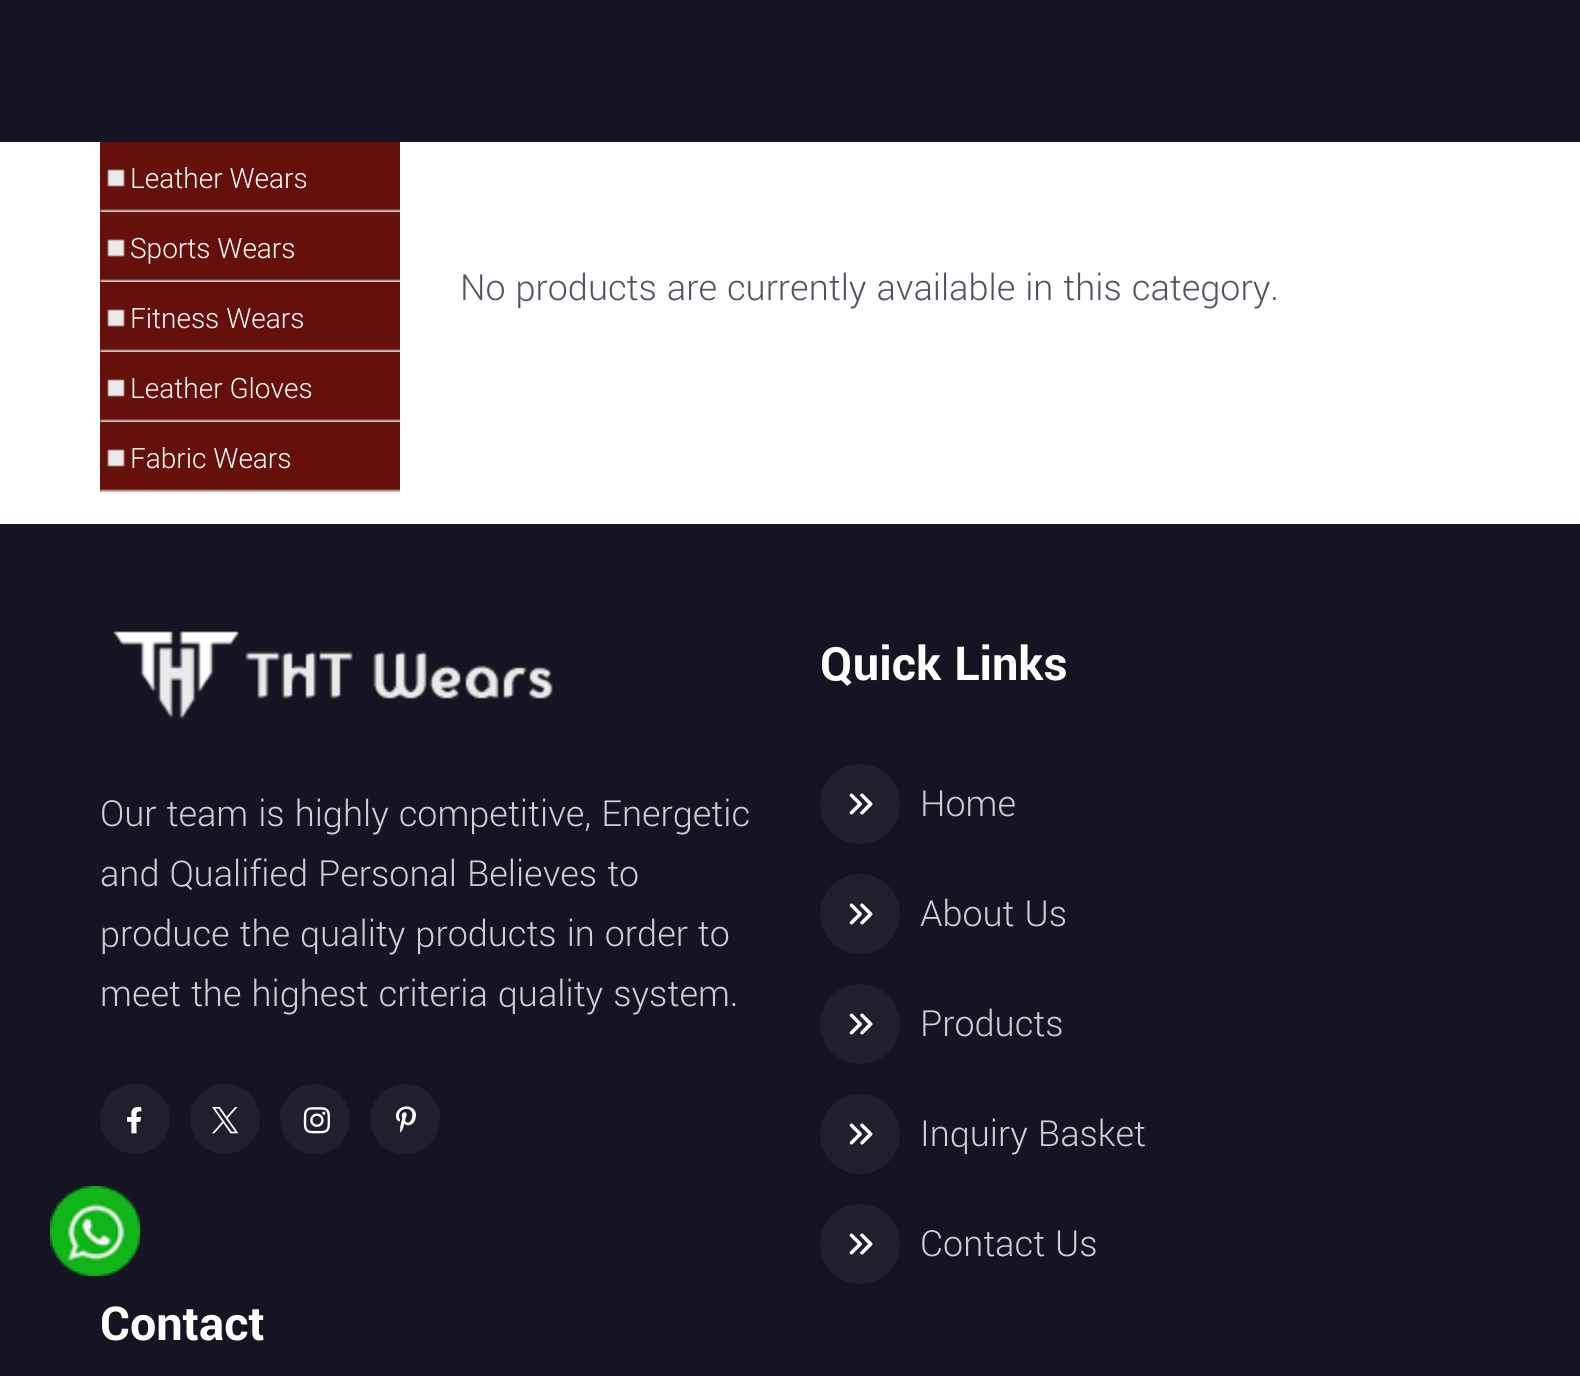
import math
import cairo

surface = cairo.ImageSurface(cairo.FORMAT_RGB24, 1580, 1376)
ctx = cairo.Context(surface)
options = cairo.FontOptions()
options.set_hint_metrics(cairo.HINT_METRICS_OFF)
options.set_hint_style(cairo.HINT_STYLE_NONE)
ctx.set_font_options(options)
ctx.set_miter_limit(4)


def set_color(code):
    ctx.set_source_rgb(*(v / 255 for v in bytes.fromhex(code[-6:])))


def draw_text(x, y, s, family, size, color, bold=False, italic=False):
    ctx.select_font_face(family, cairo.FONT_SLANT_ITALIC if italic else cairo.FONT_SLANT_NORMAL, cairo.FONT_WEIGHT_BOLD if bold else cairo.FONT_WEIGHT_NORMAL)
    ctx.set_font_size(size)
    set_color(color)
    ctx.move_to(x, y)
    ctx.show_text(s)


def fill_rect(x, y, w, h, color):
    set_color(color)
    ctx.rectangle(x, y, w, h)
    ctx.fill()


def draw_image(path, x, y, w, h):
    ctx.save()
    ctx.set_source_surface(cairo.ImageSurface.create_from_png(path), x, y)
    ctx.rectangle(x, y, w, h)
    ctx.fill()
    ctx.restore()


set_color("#ffffff")
ctx.paint()
fill_rect(0, 524, 1580, 852, "#141422")
draw_image("assets/img1.png", 50, 1186, 90, 90)
fill_rect(0, 0, 1580, 142, "#141422")
draw_image("assets/img2.png", 100, 142, 300, 70)
draw_text(130, 188, "Leather Wears", "Roboto Light", 28, "#ffffff")
draw_image("assets/img2.png", 100, 212, 300, 70)
draw_text(130, 258, "Sports Wears", "Roboto Light", 28, "#ffffff")
draw_image("assets/img2.png", 100, 282, 300, 70)
draw_text(130, 328, "Fitness Wears", "Roboto Light", 28, "#ffffff")
draw_image("assets/img2.png", 100, 352, 300, 70)
draw_text(130, 398, "Leather Gloves", "Roboto Light", 28, "#ffffff")
draw_image("assets/img2.png", 100, 422, 300, 70)
draw_text(130, 468, "Fabric Wears", "Roboto Light", 28, "#ffffff")
draw_text(460, 300, "No products are currently available in this category.", "Yantramanav Light", 40, "#52515e")
draw_image("assets/img3.png", 113, 631, 440, 88)
draw_text(100, 826, "Our team is highly competitive, Energetic", "Yantramanav Light", 40, "#d0d0d3")
draw_text(100, 886, "and Qualified Personal Believes to", "Yantramanav Light", 40, "#d0d0d3")
draw_text(100, 946, "produce the quality products in order to", "Yantramanav Light", 40, "#d0d0d3")
draw_text(100, 1006, "meet the highest criteria quality system.", "Yantramanav Light", 40, "#d0d0d3")
set_color("#20202d")
ctx.new_path()
ctx.arc(135, 1119, 35, 0, 2 * math.pi)
ctx.fill()
draw_image("assets/img4.png", 127, 1107, 15, 27)
ctx.arc(225, 1119, 35, 0, 2 * math.pi)
ctx.fill()
draw_image("assets/img5.png", 212, 1107, 27, 27)
ctx.arc(315, 1119, 35, 0, 2 * math.pi)
ctx.fill()
draw_image("assets/img6.png", 303, 1107, 27, 27)
ctx.arc(405, 1119, 35, 0, 2 * math.pi)
ctx.fill()
draw_image("assets/img7.png", 396, 1106, 20, 27)
draw_text(820, 680, "Quick Links", "Yantramanav", 52, "#ffffff", bold=True)
set_color("#20202d")
ctx.new_path()
ctx.arc(860, 804, 40, 0, 2 * math.pi)
ctx.fill()
draw_image("assets/img8.png", 849, 793, 24, 22)
draw_text(920, 816, "Home", "Yantramanav Light", 40, "#d0d0d3")
set_color("#20202d")
ctx.new_path()
ctx.arc(860, 914, 40, 0, 2 * math.pi)
ctx.fill()
draw_image("assets/img8.png", 849, 903, 24, 22)
draw_text(920, 926, "About Us", "Yantramanav Light", 40, "#d0d0d3")
set_color("#20202d")
ctx.new_path()
ctx.arc(860, 1024, 40, 0, 2 * math.pi)
ctx.fill()
draw_image("assets/img8.png", 849, 1013, 24, 22)
draw_text(920, 1036, "Products", "Yantramanav Light", 40, "#d0d0d3")
set_color("#20202d")
ctx.new_path()
ctx.arc(860, 1134, 40, 0, 2 * math.pi)
ctx.fill()
draw_image("assets/img8.png", 849, 1123, 24, 22)
draw_text(920, 1146, "Inquiry Basket", "Yantramanav Light", 40, "#d0d0d3")
set_color("#20202d")
ctx.new_path()
ctx.arc(860, 1244, 40, 0, 2 * math.pi)
ctx.fill()
draw_image("assets/img8.png", 849, 1233, 24, 22)
draw_text(920, 1256, "Contact Us", "Yantramanav Light", 40, "#d0d0d3")
draw_text(100, 1340, "Contact", "Yantramanav", 52, "#ffffff", bold=True)
surface.write_to_png("output.png")
